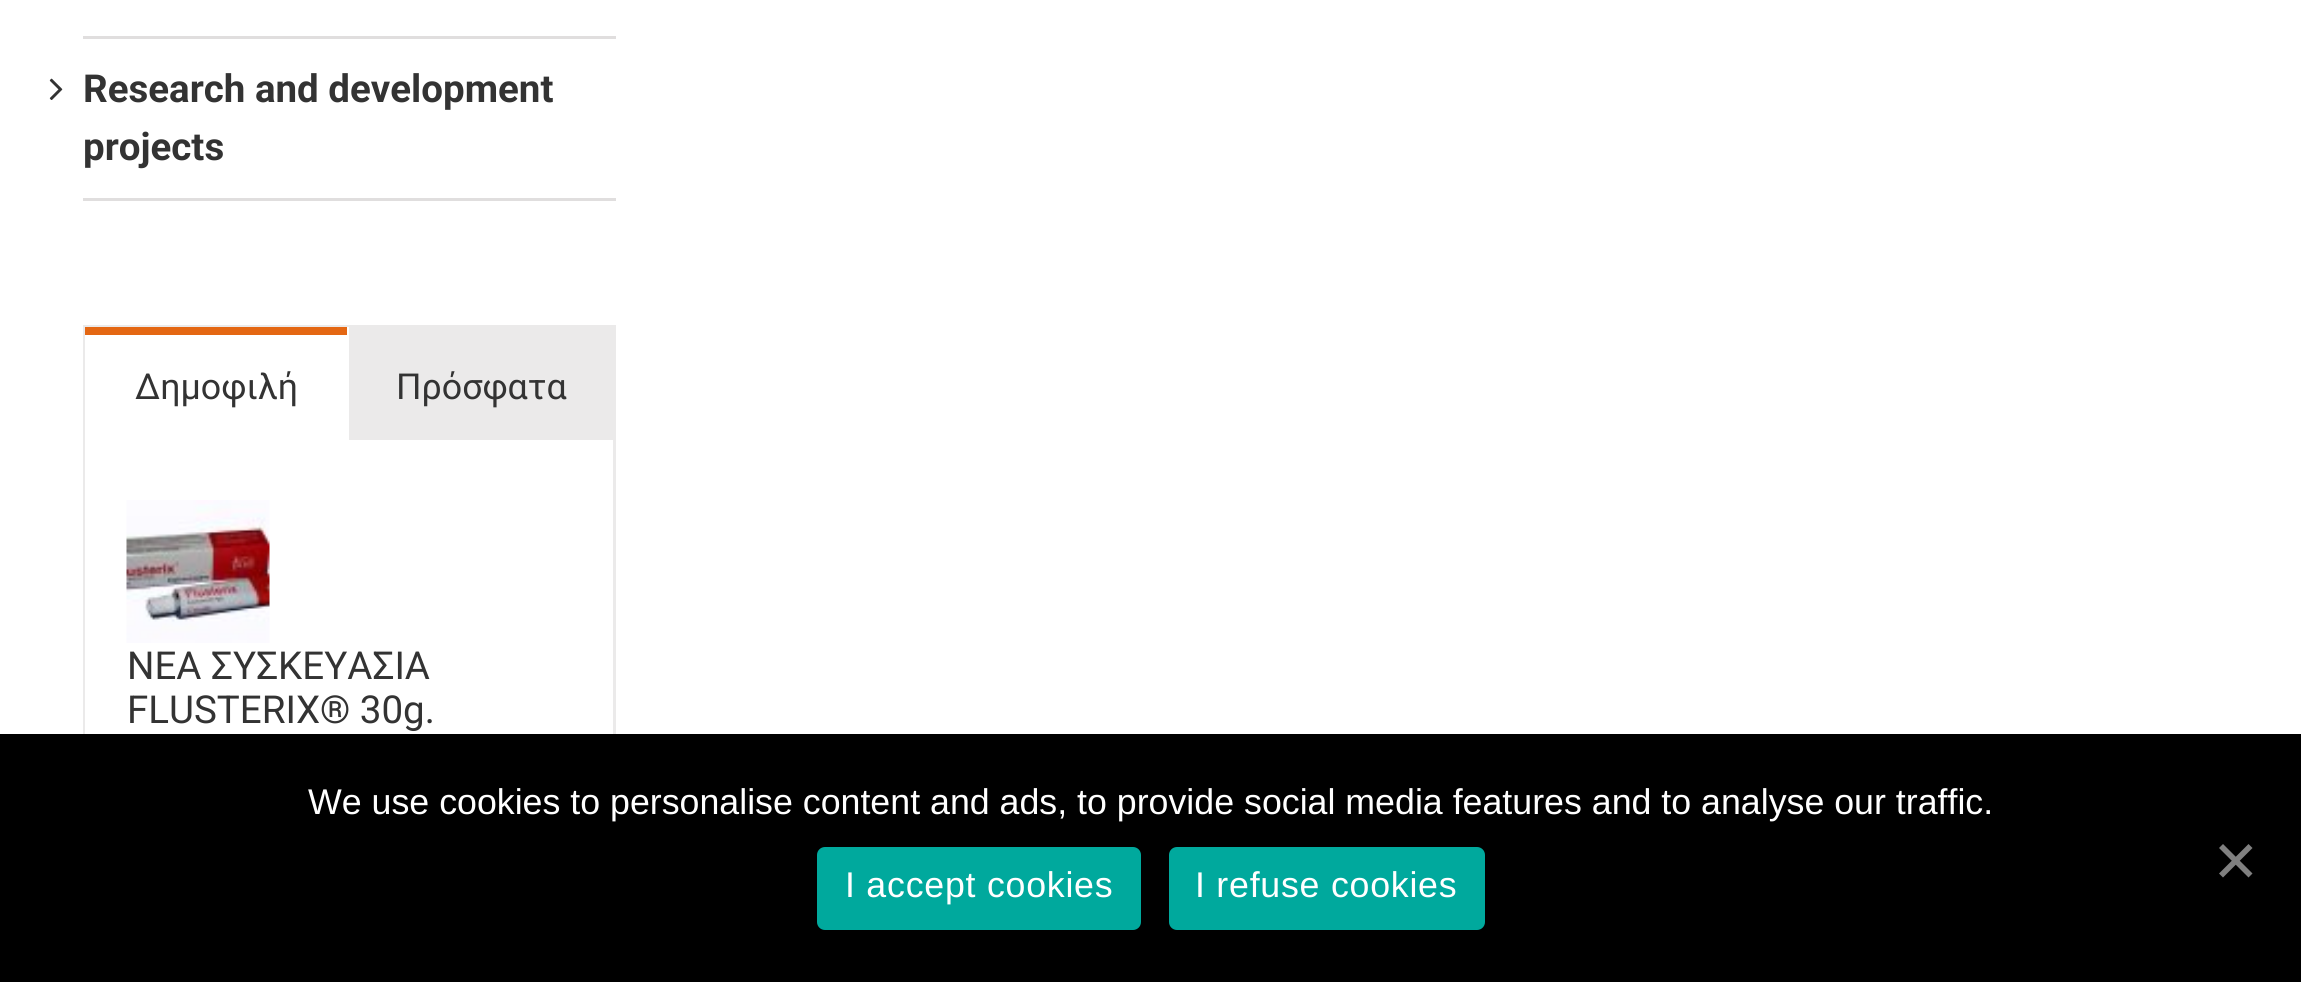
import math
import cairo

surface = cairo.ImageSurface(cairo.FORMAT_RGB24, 2301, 982)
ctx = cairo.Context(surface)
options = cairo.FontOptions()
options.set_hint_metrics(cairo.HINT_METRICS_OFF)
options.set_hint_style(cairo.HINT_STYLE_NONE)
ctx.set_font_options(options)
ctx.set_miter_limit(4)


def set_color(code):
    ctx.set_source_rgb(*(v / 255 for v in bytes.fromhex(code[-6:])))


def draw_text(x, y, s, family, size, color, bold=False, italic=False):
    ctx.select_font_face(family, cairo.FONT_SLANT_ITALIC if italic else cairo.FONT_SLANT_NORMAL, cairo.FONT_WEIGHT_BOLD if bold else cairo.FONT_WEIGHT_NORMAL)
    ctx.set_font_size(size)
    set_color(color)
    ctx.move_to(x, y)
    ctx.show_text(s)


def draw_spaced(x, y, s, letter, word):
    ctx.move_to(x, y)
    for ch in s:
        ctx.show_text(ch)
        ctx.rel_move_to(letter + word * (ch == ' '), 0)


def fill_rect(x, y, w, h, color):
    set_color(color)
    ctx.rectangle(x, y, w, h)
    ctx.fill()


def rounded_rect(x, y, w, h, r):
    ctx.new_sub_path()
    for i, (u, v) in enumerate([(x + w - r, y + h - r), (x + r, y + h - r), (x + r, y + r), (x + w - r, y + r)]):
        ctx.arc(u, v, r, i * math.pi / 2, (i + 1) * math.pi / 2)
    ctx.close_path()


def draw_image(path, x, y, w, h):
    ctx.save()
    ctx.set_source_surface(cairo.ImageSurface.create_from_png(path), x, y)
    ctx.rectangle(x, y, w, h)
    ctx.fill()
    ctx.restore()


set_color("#ffffff")
ctx.paint()
fill_rect(83, 36, 533, 3, "#e0dede")
fill_rect(83, 198, 533, 3, "#e0dede")
draw_image("assets/img1.png", 49, 78, 14, 22)
draw_text(83, 102, "Research and development", "Roboto", 38.5, "#333333", bold=True)
draw_text(83, 160, "projects", "Roboto", 38.5, "#333333", bold=True)
ctx.rectangle(84.5, 326.5, 530, 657)
set_color("#ebeaea")
ctx.set_line_width(3)
ctx.stroke()
fill_rect(347, 327, 2, 1, "#ffffff")
fill_rect(85, 327, 262, 8, "#e46713")
draw_text(135, 399, "Δημοφιλή", "Roboto", 35.75, "#333333")
fill_rect(349, 328, 264, 112, "#ebeaea")
draw_text(396, 399, "Πρόσφατα", "Roboto", 35.75, "#333333")
fill_rect(85, 335, 1, 399, "#ffffff")
draw_image("assets/img2.png", 126, 500, 144, 143)
draw_text(127, 679, "ΝΕΑ ΣΥΣΚΕΥΑΣΙΑ", "Roboto", 38.5, "#333333")
draw_text(127, 723, "FLUSTERIX® 30g.", "Roboto", 38.5, "#333333")
fill_rect(0, 734, 2301, 248, "#000000")
draw_text(308, 814, "We use cookies to personalise content and ads, to provide social media features and to analyse our traffic.", "Liberation Sans", 35.75, "#ffffff")
set_color("#808080")
ctx.new_path()
ctx.move_to(2248.5, 844)
ctx.line_to(2252.5, 848)
ctx.line_to(2223, 877.5)
ctx.line_to(2219, 873.5)
ctx.close_path()
ctx.fill()
ctx.new_path()
ctx.move_to(2219, 848)
ctx.line_to(2223, 844)
ctx.line_to(2252.5, 873.5)
ctx.line_to(2248.5, 877.5)
ctx.close_path()
ctx.fill()
set_color("#00a99d")
rounded_rect(817, 847, 324, 83, 8)
ctx.fill()
set_color("#ffffff")
draw_spaced(845, 897, "I accept cookies", 0.75, 0)
set_color("#00a99d")
rounded_rect(1169, 847, 316, 83, 8)
ctx.fill()
set_color("#ffffff")
draw_spaced(1195, 897, "I refuse cookies", 0.75, 0)
surface.write_to_png("output.png")
